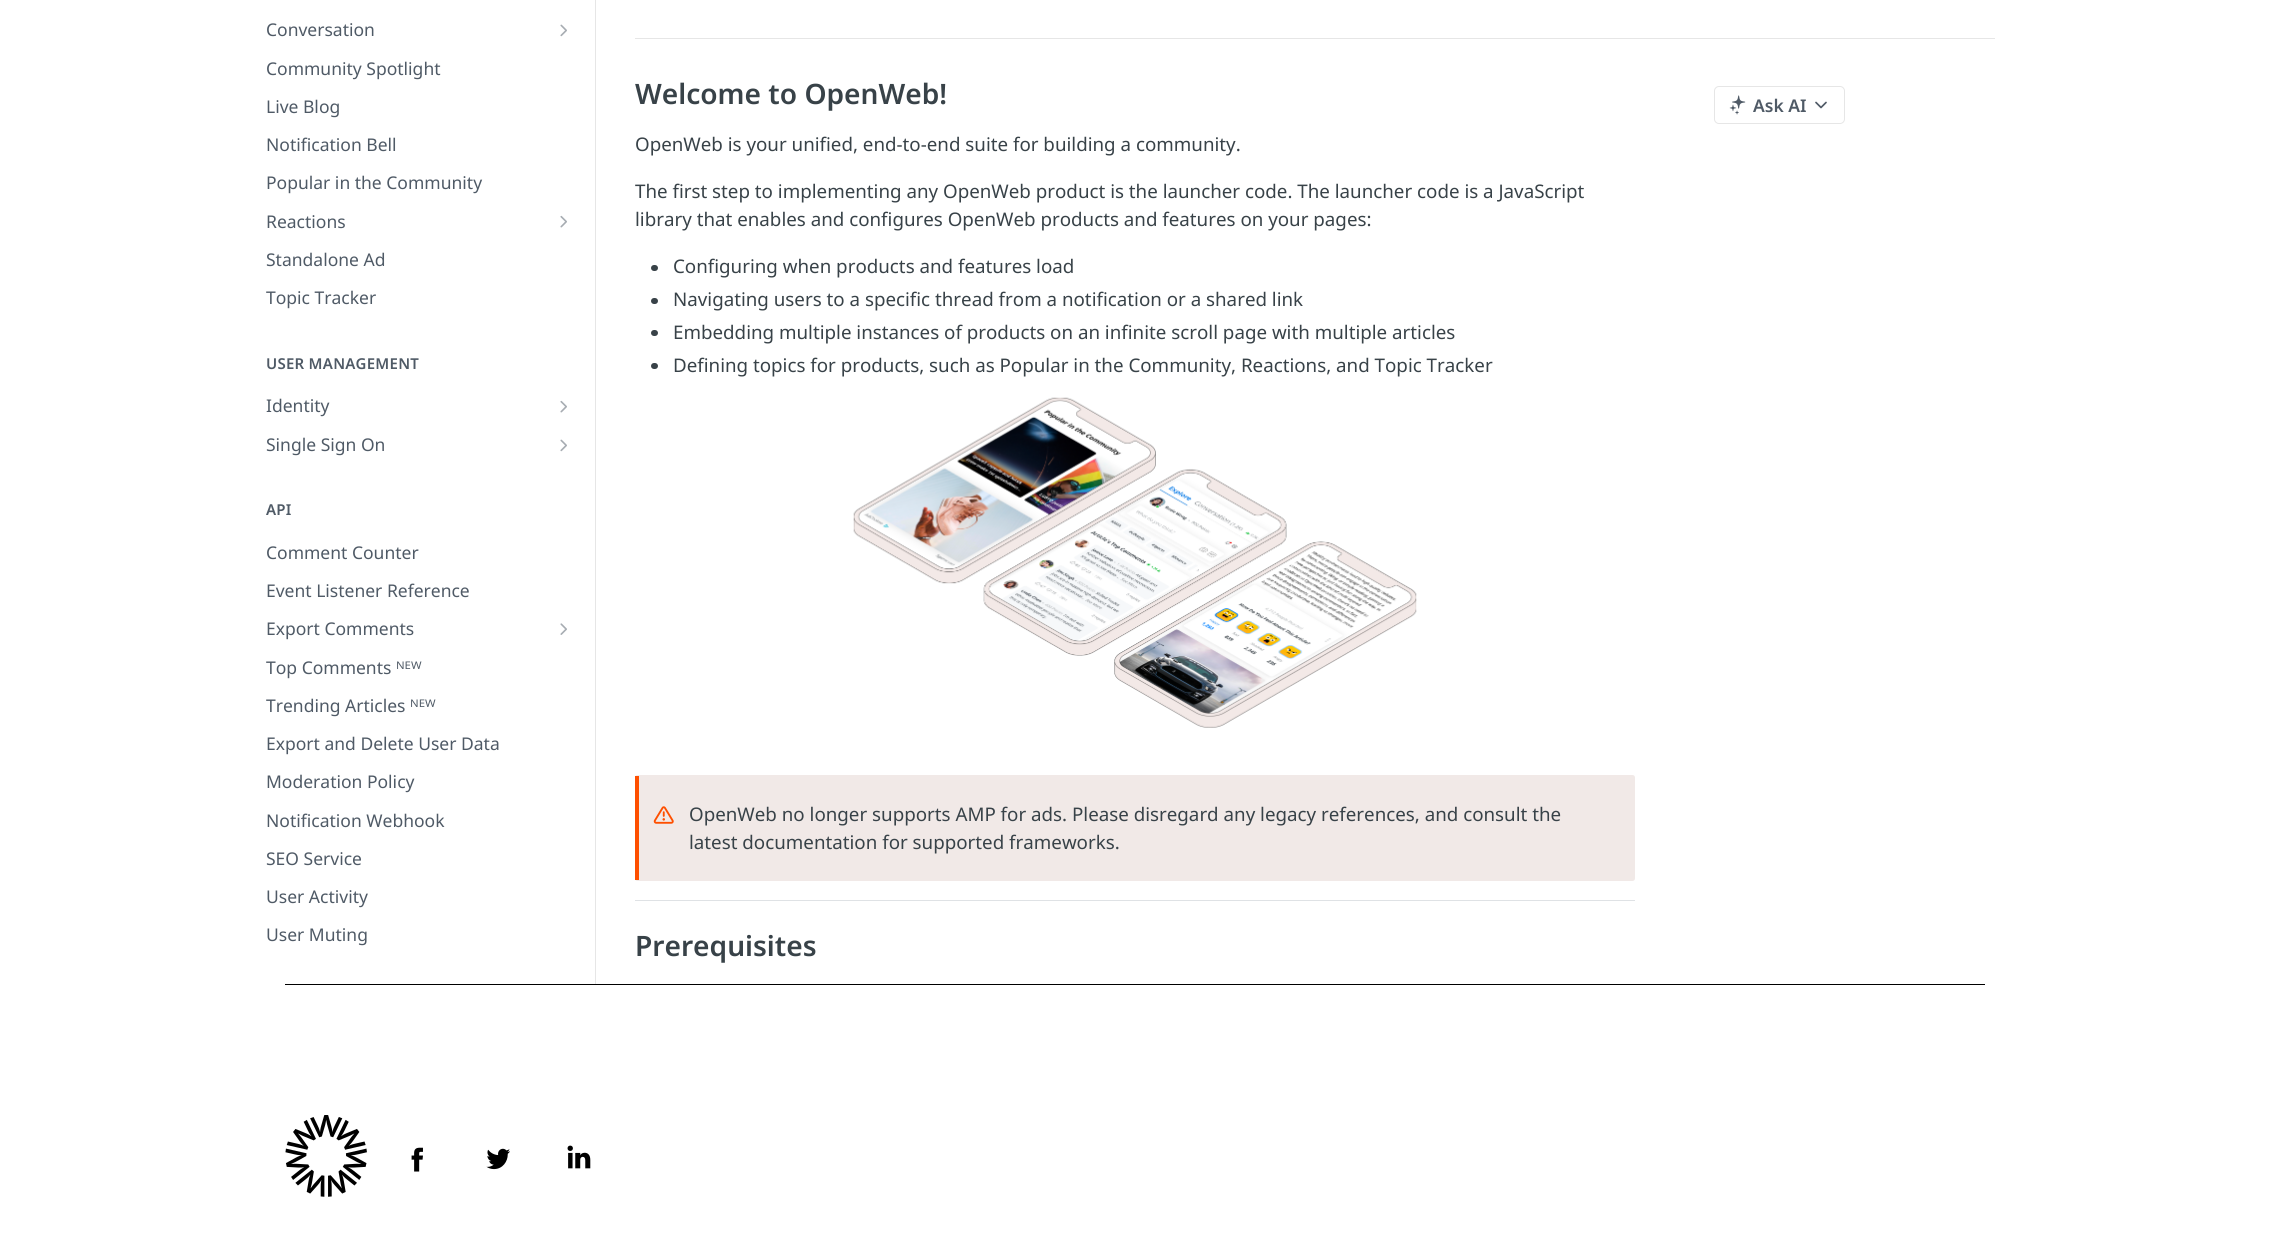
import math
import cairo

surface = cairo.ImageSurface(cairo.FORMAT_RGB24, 2270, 1239)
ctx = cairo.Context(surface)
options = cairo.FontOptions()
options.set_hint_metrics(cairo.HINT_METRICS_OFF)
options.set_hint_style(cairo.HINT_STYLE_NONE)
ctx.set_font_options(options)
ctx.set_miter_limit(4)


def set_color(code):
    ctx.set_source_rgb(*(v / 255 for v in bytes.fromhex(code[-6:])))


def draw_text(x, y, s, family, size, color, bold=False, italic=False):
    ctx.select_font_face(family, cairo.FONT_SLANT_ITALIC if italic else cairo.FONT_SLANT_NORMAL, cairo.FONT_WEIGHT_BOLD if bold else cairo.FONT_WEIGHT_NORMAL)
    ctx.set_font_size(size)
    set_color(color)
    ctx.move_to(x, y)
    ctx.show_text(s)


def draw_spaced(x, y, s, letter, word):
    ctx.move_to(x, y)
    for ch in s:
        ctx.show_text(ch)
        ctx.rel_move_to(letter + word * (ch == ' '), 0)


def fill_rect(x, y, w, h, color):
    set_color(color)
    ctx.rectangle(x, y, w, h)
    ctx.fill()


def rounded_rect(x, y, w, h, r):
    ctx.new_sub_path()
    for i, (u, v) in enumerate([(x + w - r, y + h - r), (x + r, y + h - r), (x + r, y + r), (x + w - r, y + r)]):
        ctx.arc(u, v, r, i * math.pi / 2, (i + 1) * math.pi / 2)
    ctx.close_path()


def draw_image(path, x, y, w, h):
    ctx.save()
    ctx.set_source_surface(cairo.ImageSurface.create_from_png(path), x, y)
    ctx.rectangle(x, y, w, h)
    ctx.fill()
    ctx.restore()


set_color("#ffffff")
ctx.paint()
ctx.save()
ctx.rectangle(0, 0, 2270, 984)
ctx.clip()
set_color("#e6e6e6")
ctx.new_path()
ctx.move_to(236, -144)
ctx.line_to(595, -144)
ctx.line_to(595, 1096)
ctx.line_to(596, 1096)
ctx.line_to(596, -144)
ctx.close_path()
ctx.fill()
ctx.restore()
draw_text(266, 36, "Conversation", "Noto Sans", 17.5, "#4f5a66")
draw_image("assets/img1.png", 560, 24, 7, 13)
draw_text(266, 75, "Community Spotlight", "Noto Sans", 17.5, "#4f5a66")
draw_text(266, 113, "Live Blog", "Noto Sans", 17.5, "#4f5a66")
draw_text(266, 151, "Notification Bell", "Noto Sans", 17.5, "#4f5a66")
draw_text(266, 189, "Popular in the Community", "Noto Sans", 17.5, "#4f5a66")
draw_text(266, 228, "Reactions", "Noto Sans", 17.5, "#4f5a66")
draw_image("assets/img2.png", 560, 215, 7, 13)
draw_text(266, 266, "Standalone Ad", "Noto Sans", 17.5, "#4f5a66")
draw_text(266, 304, "Topic Tracker", "Noto Sans", 17.5, "#4f5a66")
ctx.select_font_face("Noto Sans SemiBold")
ctx.set_font_size(15)
draw_spaced(266, 369, "USER MANAGEMENT", 0.25, 0)
draw_text(266, 412, "Identity", "Noto Sans", 17.5, "#4f5a66")
draw_image("assets/img2.png", 560, 400, 7, 13)
draw_text(266, 451, "Single Sign On", "Noto Sans", 17.5, "#4f5a66")
draw_image("assets/img1.png", 560, 439, 7, 13)
ctx.select_font_face("Noto Sans SemiBold")
ctx.set_font_size(15)
draw_spaced(266, 515, "API", 0.25, 0)
draw_text(266, 559, "Comment Counter", "Noto Sans", 17.5, "#4f5a66")
draw_text(266, 597, "Event Listener Reference", "Noto Sans", 17.5, "#4f5a66")
draw_text(266, 635, "Export Comments", "Noto Sans", 17.5, "#4f5a66")
draw_image("assets/img3.png", 560, 623, 7, 12)
draw_text(266, 674, "Top Comments ᴺᴱᵂ", "Noto Sans", 17.5, "#4f5a66")
draw_text(266, 712, "Trending Articles ᴺᴱᵂ", "Noto Sans", 17.5, "#4f5a66")
draw_text(266, 750, "Export and Delete User Data", "Noto Sans", 17.5, "#4f5a66")
draw_text(266, 788, "Moderation Policy", "Noto Sans", 17.5, "#4f5a66")
draw_text(266, 827, "Notification Webhook", "Noto Sans", 17.5, "#4f5a66")
draw_text(266, 865, "SEO Service", "Noto Sans", 17.5, "#4f5a66")
draw_text(266, 903, "User Activity", "Noto Sans", 17.5, "#4f5a66")
draw_text(266, 941, "User Muting", "Noto Sans", 17.5, "#4f5a66")
fill_rect(635, 38, 1360, 1, "#e6e6e6")
draw_text(635, 104, "Welcome to OpenWeb!", "Noto Sans SemiBold", 28.1, "#384248")
draw_text(635, 151, "OpenWeb is your unified, end-to-end suite for building a community.", "Noto Sans", 18.75, "#384248")
draw_text(635, 198, "The first step to implementing any OpenWeb product is the launcher code. The launcher code is a JavaScript", "Noto Sans", 18.75, "#384248")
draw_text(635, 226, "library that enables and configures OpenWeb products and features on your pages:", "Noto Sans", 18.75, "#384248")
rounded_rect(651, 265, 7, 6, 3)
ctx.fill()
draw_text(673, 273, "Configuring when products and features load", "Noto Sans", 18.75, "#384248")
rounded_rect(651, 298, 7, 6, 3)
ctx.fill()
draw_text(673, 306, "Navigating users to a specific thread from a notification or a shared link", "Noto Sans", 18.75, "#384248")
rounded_rect(651, 330, 7, 6, 3)
ctx.fill()
draw_text(673, 339, "Embedding multiple instances of products on an infinite scroll page with multiple articles", "Noto Sans", 18.75, "#384248")
rounded_rect(651, 363, 7, 6, 3)
ctx.fill()
draw_text(673, 372, "Defining topics for products, such as Popular in the Community, Reactions, and Topic Tracker", "Noto Sans", 18.75, "#384248")
draw_image("assets/img4.png", 853, 397, 564, 331)
set_color("#f1e9e7")
rounded_rect(635, 775, 1000, 106, 2.5)
ctx.fill()
fill_rect(635, 776, 4, 104, "#fe4f00")
draw_image("assets/img5.png", 653, 806, 21, 18)
draw_text(689, 821, "OpenWeb no longer supports AMP for ads. Please disregard any legacy references, and consult the", "Noto Sans", 18.75, "#384248")
draw_text(689, 849, "latest documentation for supported frameworks.", "Noto Sans", 18.75, "#384248")
fill_rect(635, 900, 1000, 1, "#dfe2e5")
draw_text(635, 956, "Prerequisites", "Noto Sans SemiBold", 28.1, "#384248")
rounded_rect(1714.5, 86.5, 130, 37, 4.5)
set_color("#e6e6e6")
ctx.set_line_width(1)
ctx.stroke()
draw_image("assets/img6.png", 1729, 95, 17, 20)
draw_text(1753, 112, "Ask AI", "Noto Sans SemiBold", 17.5, "#4f5a66")
ctx.new_path()
ctx.move_to(1816, 102.5)
ctx.line_to(1821, 107.5)
ctx.line_to(1826, 102.5)
ctx.set_line_width(1.7)
ctx.set_line_cap(cairo.LINE_CAP_ROUND)
ctx.set_line_join(cairo.LINE_JOIN_ROUND)
ctx.stroke()
fill_rect(285, 984, 1700, 1, "#000000")
draw_image("assets/img7.png", 285, 1115, 82, 82)
draw_image("assets/img8.png", 411, 1147, 12, 25)
draw_image("assets/img9.png", 486, 1148, 24, 22)
draw_image("assets/img10.png", 567, 1145, 24, 24)
surface.write_to_png("output.png")
